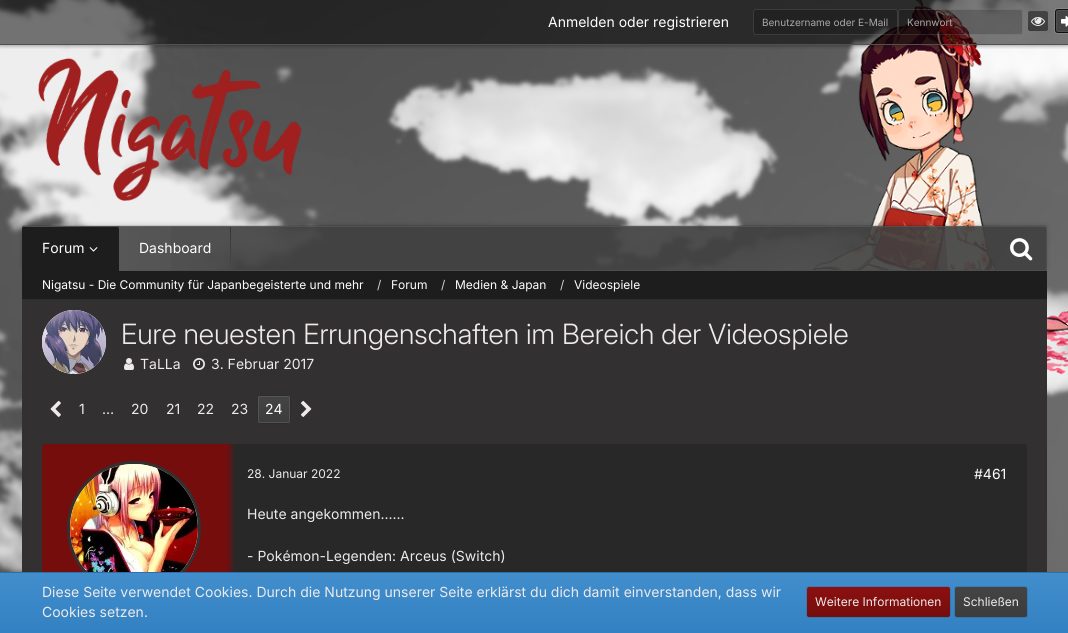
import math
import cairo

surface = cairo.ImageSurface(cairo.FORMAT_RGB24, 1068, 633)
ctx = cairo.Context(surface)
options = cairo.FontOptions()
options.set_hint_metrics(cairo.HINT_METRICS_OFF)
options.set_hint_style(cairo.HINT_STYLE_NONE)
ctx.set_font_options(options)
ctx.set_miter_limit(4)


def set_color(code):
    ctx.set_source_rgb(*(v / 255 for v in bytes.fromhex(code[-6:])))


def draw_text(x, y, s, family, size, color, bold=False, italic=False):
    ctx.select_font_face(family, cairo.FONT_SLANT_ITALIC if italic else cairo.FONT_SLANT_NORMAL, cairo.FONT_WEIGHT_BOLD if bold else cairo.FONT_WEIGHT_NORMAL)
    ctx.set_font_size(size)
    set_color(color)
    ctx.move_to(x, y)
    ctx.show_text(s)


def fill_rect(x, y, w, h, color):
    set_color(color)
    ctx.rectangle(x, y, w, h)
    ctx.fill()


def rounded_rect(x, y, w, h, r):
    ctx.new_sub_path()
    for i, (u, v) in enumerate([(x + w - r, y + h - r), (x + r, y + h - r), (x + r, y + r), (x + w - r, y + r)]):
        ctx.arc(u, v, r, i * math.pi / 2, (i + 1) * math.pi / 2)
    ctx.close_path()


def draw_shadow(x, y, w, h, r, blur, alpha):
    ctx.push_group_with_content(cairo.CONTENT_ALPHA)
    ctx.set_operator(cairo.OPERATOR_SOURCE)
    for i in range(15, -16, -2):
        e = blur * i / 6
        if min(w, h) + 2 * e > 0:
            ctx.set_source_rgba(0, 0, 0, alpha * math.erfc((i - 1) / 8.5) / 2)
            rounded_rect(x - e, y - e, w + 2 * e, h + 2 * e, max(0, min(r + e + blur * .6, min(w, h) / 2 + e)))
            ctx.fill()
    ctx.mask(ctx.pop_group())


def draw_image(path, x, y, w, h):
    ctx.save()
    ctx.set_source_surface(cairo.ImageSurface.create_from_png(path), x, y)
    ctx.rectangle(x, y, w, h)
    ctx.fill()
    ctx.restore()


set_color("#ffffff")
ctx.paint()
draw_image("assets/img1.png", 0, 0, 1068, 572)
ctx.save()
ctx.rectangle(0, 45, 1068, 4)
ctx.clip()
set_color("#000000")
draw_shadow(0, 0, 1068, 45, 0, 2.5, 0.5)
ctx.restore()
ctx.set_source_rgba(0, 0, 0, 0.52)
ctx.rectangle(0, 0, 1068, 44)
ctx.fill()
fill_rect(0, 44, 1068, 1, "#515151")
draw_text(548, 27, "Anmelden oder registrieren", "Inter", 14, "#ffffff")
ctx.set_source_rgba(0, 0, 0, 0.2)
rounded_rect(753, 9, 145, 26, 3)
ctx.fill()
rounded_rect(753.5, 9.5, 144, 25, 2.5)
ctx.set_source_rgba(1, 1, 1, 0.12)
ctx.set_line_width(1)
ctx.stroke()
draw_text(762, 26, "Benutzername oder E-Mail", "Inter", 10, "#a9a9a9")
ctx.set_source_rgba(0, 0, 0, 0.2)
rounded_rect(898, 9, 125, 26, 3)
ctx.fill()
rounded_rect(898.5, 9.5, 124, 25, 2.5)
ctx.set_source_rgba(1, 1, 1, 0.12)
ctx.stroke()
draw_text(907, 26, "Kennwort", "Inter", 10, "#a9a9a9")
gradient = cairo.LinearGradient(1038, 11, 1038, 31)
gradient.add_color_stop_rgba(0, 0.267, 0.267, 0.267, 1)
gradient.add_color_stop_rgba(1, 0.235, 0.235, 0.235, 1)
ctx.set_source(gradient)
rounded_rect(1028, 11, 20, 20, 2)
ctx.fill()
draw_image("assets/img2.png", 1031, 17, 14, 9)
rounded_rect(1054.5, 8.5, 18, 25, 3.5)
ctx.set_source_rgba(1, 1, 1, 0.12)
ctx.stroke()
set_color("#444444")
rounded_rect(1055, 9, 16, 24, 3)
ctx.fill()
rounded_rect(1056.5, 10.5, 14, 21, 1.5)
set_color("#515151")
ctx.stroke()
rounded_rect(1055.5, 9.5, 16, 23, 2.5)
ctx.set_source_rgba(0, 0, 0, 0.8)
ctx.stroke()
draw_image("assets/img3.png", 1061, 15, 7, 12)
draw_image("assets/img4.png", 38, 57, 264, 144)
fill_rect(22, 271, 1025, 28, "#1d1d1d")
fill_rect(119, 270, 928, 1, "#515151")
ctx.save()
ctx.set_fill_rule(cairo.FILL_RULE_EVEN_ODD)
ctx.new_path()
ctx.move_to(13, 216)
ctx.line_to(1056, 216)
ctx.line_to(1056, 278)
ctx.line_to(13, 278)
ctx.close_path()
ctx.move_to(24, 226)
ctx.line_to(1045, 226)
ctx.curve_to(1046, 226, 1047, 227, 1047, 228)
ctx.line_to(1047, 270)
ctx.line_to(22, 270)
ctx.line_to(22, 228)
ctx.curve_to(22, 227, 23, 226, 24, 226)
ctx.close_path()
ctx.clip()
set_color("#000000")
draw_shadow(22, 225, 1025, 44, 2, 2.5, 0.15)
ctx.restore()
ctx.set_source_rgba(0, 0, 0, 0.1)
ctx.new_path()
ctx.move_to(24, 225)
ctx.curve_to(22, 225, 22, 227, 22, 228)
ctx.curve_to(22, 227, 23, 226, 24, 226)
ctx.line_to(1045, 226)
ctx.curve_to(1046, 226, 1047, 227, 1047, 228)
ctx.curve_to(1047, 227, 1047, 225, 1045, 225)
ctx.close_path()
ctx.fill()
ctx.set_source_rgba(0.255, 0.255, 0.255, 0.7)
ctx.new_path()
ctx.move_to(24, 226)
ctx.line_to(1045, 226)
ctx.curve_to(1046, 226, 1047, 227, 1047, 228)
ctx.line_to(1047, 270)
ctx.line_to(22, 270)
ctx.line_to(22, 228)
ctx.curve_to(22, 227, 23, 226, 24, 226)
ctx.close_path()
ctx.fill()
ctx.new_path()
ctx.move_to(24, 226)
ctx.curve_to(23, 226, 22, 227, 22, 228)
ctx.line_to(22, 270)
ctx.line_to(1047, 270)
ctx.line_to(1047, 228)
ctx.curve_to(1047, 227, 1046, 226, 1045, 226)
ctx.close_path()
ctx.fill()
set_color("#4e4e4e")
ctx.new_path()
ctx.move_to(1046, 270)
ctx.line_to(1047, 270)
ctx.line_to(1047, 228)
ctx.curve_to(1047, 227, 1046, 226, 1045, 226)
ctx.line_to(1044, 226)
ctx.curve_to(1045, 226, 1046, 227, 1046, 228)
ctx.close_path()
ctx.fill()
ctx.set_source_rgba(1, 1, 1, 0.08)
ctx.new_path()
ctx.move_to(24, 227)
ctx.line_to(1045, 227)
ctx.curve_to(1046, 227, 1047, 228, 1047, 229)
ctx.line_to(1047, 228)
ctx.curve_to(1047, 227, 1046, 226, 1045, 226)
ctx.line_to(24, 226)
ctx.curve_to(23, 226, 22, 227, 22, 228)
ctx.line_to(22, 229)
ctx.curve_to(22, 228, 23, 227, 24, 227)
ctx.close_path()
ctx.fill()
gradient = cairo.LinearGradient(22, 249, 119, 249)
gradient.add_color_stop_rgba(0, 1, 1, 1, 0.04)
gradient.add_color_stop_rgba(1, 1, 1, 1, 0)
ctx.set_source(gradient)
ctx.rectangle(22, 226, 2, 2)
ctx.fill()
set_color("#1d1d1d")
ctx.new_path()
ctx.move_to(24, 226)
ctx.line_to(117, 226)
ctx.curve_to(118, 226, 119, 227, 119, 228)
ctx.line_to(119, 271)
ctx.line_to(22, 271)
ctx.line_to(22, 228)
ctx.curve_to(22, 227, 23, 226, 24, 226)
ctx.close_path()
ctx.fill()
ctx.save()
ctx.rectangle(22, 226, 955, 45)
ctx.clip()
set_color("#515151")
ctx.new_path()
ctx.move_to(24, 227)
ctx.line_to(117, 227)
ctx.curve_to(118, 227, 119, 228, 119, 229)
ctx.curve_to(119, 228, 119, 226, 117, 226)
ctx.line_to(40, 226)
ctx.curve_to(38, 226, 22, 222, 22, 229)
ctx.curve_to(22, 228, 23, 227, 24, 227)
ctx.close_path()
ctx.fill()
ctx.restore()
draw_text(42, 253, "Forum", "Inter", 14, "#ffffff")
draw_image("assets/img5.png", 89, 247, 9, 5)
gradient = cairo.LinearGradient(119, 249, 231, 249)
gradient.add_color_stop_rgba(0, 1, 1, 1, 0.04)
gradient.add_color_stop_rgba(1, 1, 1, 1, 0)
ctx.set_source(gradient)
ctx.rectangle(119, 226, 52, 45)
ctx.fill()
draw_text(139, 253, "Dashboard", "Inter", 14, "#ffffff")
gradient = cairo.LinearGradient(231, 227, 231, 271)
gradient.add_color_stop_rgba(0, 0, 0, 0, 0.35)
gradient.add_color_stop_rgba(1, 0, 0, 0, 0)
ctx.set_source(gradient)
ctx.rectangle(230, 227, 1, 44)
ctx.fill()
draw_image("assets/img6.png", 1010, 238, 23, 23)
fill_rect(22, 299, 1025, 1, "#2e2e2e")
draw_text(42, 289, "Nigatsu - Die Community für Japanbegeisterte und mehr", "Inter", 12, "#ffffff")
draw_text(377, 289, "/", "Inter", 12, "#d2d2d2")
draw_text(391, 289, "Forum", "Inter", 12, "#ffffff")
draw_text(441, 289, "/", "Inter", 12, "#d2d2d2")
draw_text(455, 289, "Medien & Japan", "Inter", 12, "#ffffff")
draw_text(560, 289, "/", "Inter", 12, "#d2d2d2")
draw_text(574, 289, "Videospiele", "Inter", 12, "#ffffff")
fill_rect(22, 300, 1025, 272, "#323030")
set_color("#ffffff")
ctx.new_path()
ctx.arc(74, 342, 32, 0, 2 * math.pi)
ctx.fill()
draw_image("assets/img7.png", 42, 310, 64, 64)
draw_text(121, 344, "Eure neuesten Errungenschaften im Bereich der Videospiele", "Inter Light", 28, "#eeeaea")
draw_image("assets/img8.png", 124, 358, 10, 12)
draw_text(140, 369, "TaLLa", "Inter", 14, "#eeeaea")
draw_image("assets/img9.png", 193, 358, 12, 12)
draw_text(211, 369, "3. Februar 2017", "Inter", 14, "#eeeaea")
draw_image("assets/img10.png", 50, 400, 11, 17)
draw_text(79, 414, "1", "Inter", 14, "#eeeaea")
draw_text(102, 414, "…", "Inter", 14, "#eeeaea")
draw_text(131, 414, "20", "Inter", 14, "#eeeaea")
draw_text(166, 414, "21", "Inter", 14, "#eeeaea")
draw_text(197, 414, "22", "Inter", 14, "#eeeaea")
draw_text(231, 414, "23", "Inter", 14, "#eeeaea")
gradient = cairo.LinearGradient(274, 395, 274, 424)
gradient.add_color_stop_rgba(0, 0.267, 0.267, 0.267, 1)
gradient.add_color_stop_rgba(1, 0.235, 0.235, 0.235, 1)
ctx.set_source(gradient)
rounded_rect(257, 395, 34, 29, 3)
ctx.fill()
rounded_rect(258, 396, 32, 27, 2)
ctx.set_source_rgba(0.408, 0.408, 0.408, 0.5)
ctx.set_line_width(2)
ctx.stroke()
rounded_rect(257.5, 395.5, 33, 28, 2.5)
set_color("#2d2d2d")
ctx.set_line_width(1)
ctx.stroke()
draw_text(265, 414, "24", "Inter", 14, "#ffffff")
draw_image("assets/img11.png", 300, 400, 12, 17)
set_color("#750d0d")
ctx.new_path()
ctx.move_to(45, 444)
ctx.line_to(227, 444)
ctx.line_to(227, 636)
ctx.line_to(45, 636)
ctx.curve_to(43.5, 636, 42, 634.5, 42, 633)
ctx.line_to(42, 447)
ctx.curve_to(42, 445.5, 43.5, 444, 45, 444)
ctx.close_path()
ctx.fill()
ctx.arc(134, 528, 65.5, 0, 2 * math.pi)
set_color("#323030")
ctx.set_line_width(3)
ctx.stroke()
set_color("#ffffff")
ctx.arc(134, 528, 64, 0, 2 * math.pi)
ctx.fill()
draw_image("assets/img12.png", 70, 464, 128, 108)
gradient = cairo.LinearGradient(227, 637, 1027, 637)
gradient.add_color_stop_rgba(0, 0.459, 0.051, 0.051, 1)
gradient.add_color_stop_rgba(0.01, 0.157, 0.157, 0.157, 1)
ctx.set_source(gradient)
ctx.new_path()
ctx.move_to(227, 444)
ctx.line_to(1024, 444)
ctx.curve_to(1025.5, 444, 1027, 445.5, 1027, 447)
ctx.line_to(1027, 633)
ctx.curve_to(1027, 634.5, 1025.5, 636, 1024, 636)
ctx.line_to(227, 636)
ctx.close_path()
ctx.fill()
draw_text(247, 478, "28. Januar 2022", "Inter", 12, "#eeeaea")
draw_text(974, 479, "#461", "Inter", 14, "#ffffff")
draw_text(247, 519, "Heute angekommen......", "Inter", 14, "#eeeaea")
draw_text(247, 561, "- Pokémon-Legenden: Arceus (Switch)", "Inter", 14, "#eeeaea")
gradient = cairo.LinearGradient(534, 572, 534, 633)
gradient.add_color_stop_rgba(0, 0.259, 0.557, 0.804, 1)
gradient.add_color_stop_rgba(1, 0.2, 0.506, 0.761, 1)
ctx.set_source(gradient)
ctx.rectangle(0, 573, 1068, 60)
ctx.fill()
fill_rect(0, 572, 1068, 1, "#306ea9")
draw_text(42, 597, "Diese Seite verwendet Cookies. Durch die Nutzung unserer Seite erklärst du dich damit einverstanden, dass wir", "Inter", 14, "#eeeaea")
draw_text(42, 617, "Cookies setzen.", "Inter", 14, "#eeeaea")
rounded_rect(806.5, 586.5, 144, 31, 2.5)
ctx.set_source_rgba(0, 0, 0, 0.1)
ctx.set_line_width(1)
ctx.stroke()
gradient = cairo.LinearGradient(879, 587, 879, 617)
gradient.add_color_stop_rgba(0, 0.549, 0.063, 0.063, 1)
gradient.add_color_stop_rgba(1, 0.459, 0.051, 0.051, 1)
ctx.set_source(gradient)
rounded_rect(807, 587, 143, 30, 2)
ctx.fill()
draw_text(815, 606, "Weitere Informationen", "Inter", 12, "#eeeaea")
rounded_rect(954.5, 586.5, 73, 31, 2.5)
ctx.set_source_rgba(0, 0, 0, 0.1)
ctx.stroke()
gradient = cairo.LinearGradient(991, 587, 991, 617)
gradient.add_color_stop_rgba(0, 0.267, 0.267, 0.267, 1)
gradient.add_color_stop_rgba(1, 0.235, 0.235, 0.235, 1)
ctx.set_source(gradient)
rounded_rect(955, 587, 72, 30, 2)
ctx.fill()
draw_text(963, 606, "Schließen", "Inter", 12, "#eeeaea")
surface.write_to_png("output.png")
